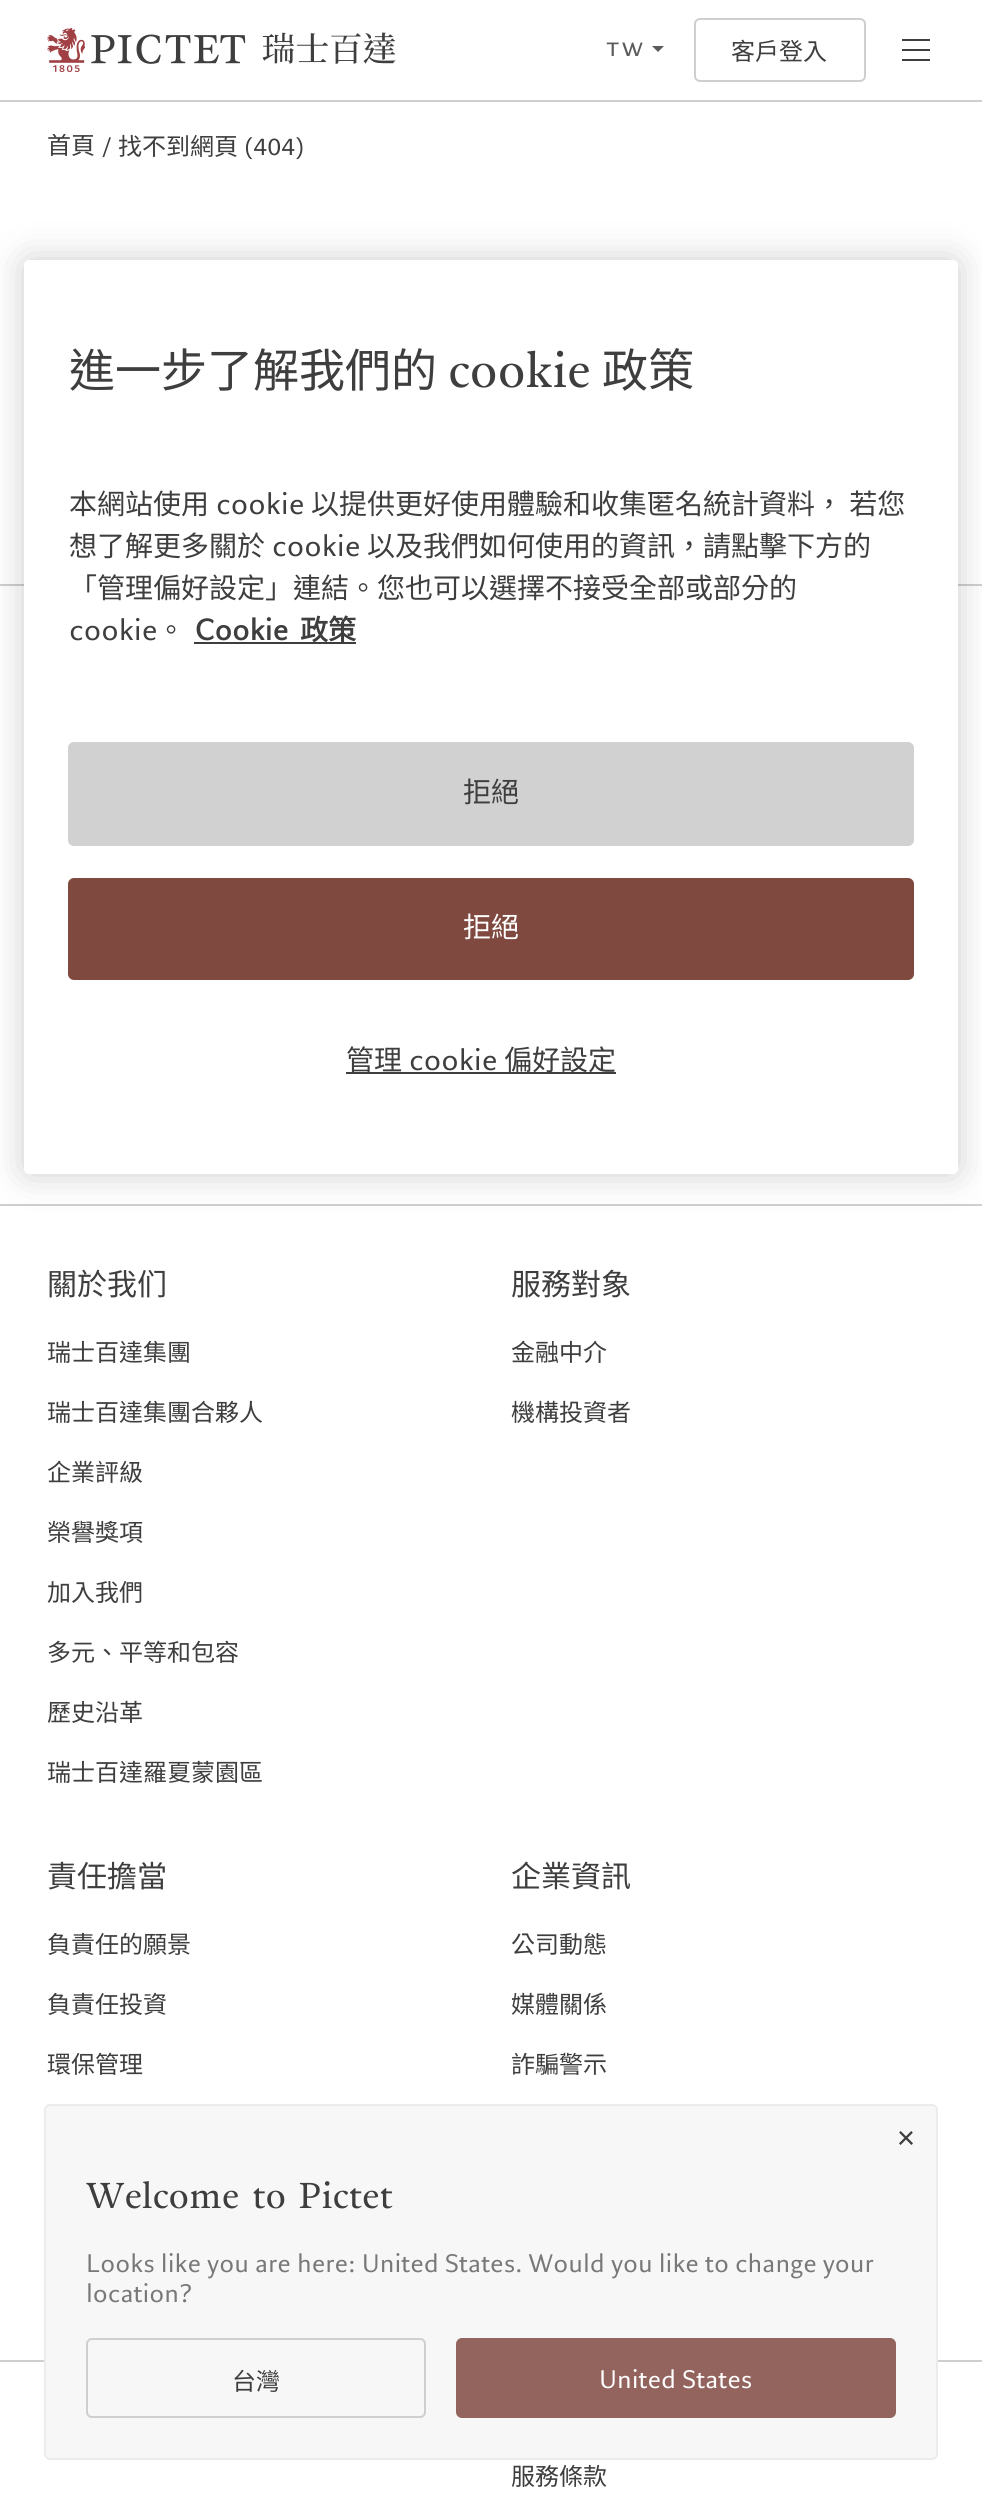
import math
import cairo

surface = cairo.ImageSurface(cairo.FORMAT_RGB24, 982, 2519)
ctx = cairo.Context(surface)
options = cairo.FontOptions()
options.set_hint_metrics(cairo.HINT_METRICS_OFF)
options.set_hint_style(cairo.HINT_STYLE_NONE)
ctx.set_font_options(options)
ctx.set_miter_limit(4)


def set_color(code):
    ctx.set_source_rgb(*(v / 255 for v in bytes.fromhex(code[-6:])))


def draw_text(x, y, s, family, size, color, bold=False, italic=False):
    ctx.select_font_face(family, cairo.FONT_SLANT_ITALIC if italic else cairo.FONT_SLANT_NORMAL, cairo.FONT_WEIGHT_BOLD if bold else cairo.FONT_WEIGHT_NORMAL)
    ctx.set_font_size(size)
    set_color(color)
    ctx.move_to(x, y)
    ctx.show_text(s)


def draw_spaced(x, y, s, letter, word):
    ctx.move_to(x, y)
    for ch in s:
        ctx.show_text(ch)
        ctx.rel_move_to(letter + word * (ch == ' '), 0)


def fill_rect(x, y, w, h, color):
    set_color(color)
    ctx.rectangle(x, y, w, h)
    ctx.fill()


def rounded_rect(x, y, w, h, r):
    ctx.new_sub_path()
    for i, (u, v) in enumerate([(x + w - r, y + h - r), (x + r, y + h - r), (x + r, y + r), (x + w - r, y + r)]):
        ctx.arc(u, v, r, i * math.pi / 2, (i + 1) * math.pi / 2)
    ctx.close_path()


def draw_shadow(x, y, w, h, r, blur, alpha):
    ctx.push_group_with_content(cairo.CONTENT_ALPHA)
    ctx.set_operator(cairo.OPERATOR_SOURCE)
    for i in range(15, -16, -2):
        e = blur * i / 6
        if min(w, h) + 2 * e > 0:
            ctx.set_source_rgba(0, 0, 0, alpha * math.erfc((i - 1) / 8.5) / 2)
            rounded_rect(x - e, y - e, w + 2 * e, h + 2 * e, max(0, min(r + e + blur * .6, min(w, h) / 2 + e)))
            ctx.fill()
    ctx.mask(ctx.pop_group())


def draw_image(path, x, y, w, h):
    ctx.save()
    ctx.set_source_surface(cairo.ImageSurface.create_from_png(path), x, y)
    ctx.rectangle(x, y, w, h)
    ctx.fill()
    ctx.restore()


set_color("#ffffff")
ctx.paint()
fill_rect(0, 100, 982, 2, "#cfcfcf")
draw_image("assets/img1.png", 47, 28, 38, 44)
draw_image("assets/img2.png", 91, 34, 155, 30)
draw_image("assets/img3.png", 262, 32, 134, 32)
draw_text(605, 56, "tw", "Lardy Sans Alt", 24, "#5b5b5b")
ctx.new_path()
ctx.move_to(652, 46)
ctx.line_to(664, 46)
ctx.line_to(658, 52)
ctx.close_path()
ctx.fill()
rounded_rect(695, 19, 170, 62, 5)
set_color("#cfcfcf")
ctx.stroke()
draw_text(731, 60, "客戶登入", "Noto Sans CJK TC", 24, "#3e3e3e")
fill_rect(902, 39, 28, 2, "#3e3e3e")
fill_rect(902, 49, 28, 2, "#3e3e3e")
fill_rect(902, 59, 28, 2, "#3e3e3e")
draw_text(47, 154, "首頁", "Noto Sans CJK TC", 24, "#3e3e3e")
draw_text(101, 155, "/", "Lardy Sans", 24, "#3e3e3e")
draw_text(118, 155, "找不到網頁", "Noto Sans CJK TC", 24, "#3e3e3e")
draw_text(244, 155, "(404)", "Lardy Sans", 24, "#3e3e3e")
fill_rect(0, 584, 982, 2, "#cfcfcf")
fill_rect(0, 1204, 982, 2, "#cfcfcf")
draw_text(47, 1295, "關於我们", "Noto Sans CJK TC", 30, "#3e3e3e")
draw_text(47, 1361, "瑞士百達集團", "Noto Sans CJK TC", 24, "#3e3e3e")
draw_text(47, 1421, "瑞士百達集團合夥人", "Noto Sans CJK TC", 24, "#3e3e3e")
draw_text(47, 1481, "企業評級", "Noto Sans CJK TC", 24, "#3e3e3e")
draw_text(47, 1541, "榮譽獎項", "Noto Sans CJK TC", 24, "#3e3e3e")
draw_text(47, 1601, "加入我們", "Noto Sans CJK TC", 24, "#3e3e3e")
draw_text(47, 1661, "多元、平等和包容", "Noto Sans CJK TC", 24, "#3e3e3e")
draw_text(47, 1721, "歷史沿革", "Noto Sans CJK TC", 24, "#3e3e3e")
draw_text(47, 1781, "瑞士百達羅夏蒙園區", "Noto Sans CJK TC", 24, "#3e3e3e")
draw_text(511, 1295, "服務對象", "Noto Sans CJK TC", 30, "#3e3e3e")
draw_text(511, 1361, "金融中介", "Noto Sans CJK TC", 24, "#3e3e3e")
draw_text(511, 1421, "機構投資者", "Noto Sans CJK TC", 24, "#3e3e3e")
draw_text(47, 1887, "責任擔當", "Noto Sans CJK TC", 30, "#3e3e3e")
draw_text(47, 1953, "負責任的願景", "Noto Sans CJK TC", 24, "#3e3e3e")
draw_text(47, 2013, "負責任投資", "Noto Sans CJK TC", 24, "#3e3e3e")
draw_text(47, 2073, "環保管理", "Noto Sans CJK TC", 24, "#3e3e3e")
draw_text(511, 1887, "企業資訊", "Noto Sans CJK TC", 30, "#3e3e3e")
draw_text(511, 1953, "公司動態", "Noto Sans CJK TC", 24, "#3e3e3e")
draw_text(511, 2013, "媒體關係", "Noto Sans CJK TC", 24, "#3e3e3e")
draw_text(511, 2073, "詐騙警示", "Noto Sans CJK TC", 24, "#3e3e3e")
fill_rect(0, 2360, 982, 2, "#cfcfcf")
draw_text(511, 2485, "服務條款", "Noto Sans CJK TC", 24, "#3e3e3e")
set_color("#000000")
draw_shadow(24, 260, 934, 914, 5, 18, 0.2)
set_color("#ffffff")
rounded_rect(24, 260, 934, 914, 5)
ctx.fill()
draw_text(69, 387, "進一步了解我們的", "Noto Sans CJK TC", 46, "#3e3e3e")
draw_text(448, 387, "cookie", "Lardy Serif", 46, "#3e3e3e")
draw_text(602, 387, "政策", "Noto Sans CJK TC", 46, "#3e3e3e")
draw_text(69, 514, "本網站使用", "Noto Sans CJK TC", 28, "#3e3e3e")
draw_text(216, 514, "cookie", "Lardy Sans", 28, "#3e3e3e")
draw_text(311, 514, "以提供更好使用體驗和收集匿名統計資料， 若您", "Noto Sans CJK TC", 28, "#3e3e3e")
draw_text(69, 556, "想了解更多關於", "Noto Sans CJK TC", 28, "#3e3e3e")
draw_text(272, 556, "cookie", "Lardy Sans", 28, "#3e3e3e")
draw_text(367, 556, "以及我們如何使用的資訊，請點擊下方的", "Noto Sans CJK TC", 28, "#3e3e3e")
draw_text(69, 598, "「管理偏好設定」連結。您也可以選擇不接受全部或部分的", "Noto Sans CJK TC", 28, "#3e3e3e")
draw_text(69, 640, "cookie", "Lardy Sans", 28, "#3e3e3e")
draw_text(157, 640, "。", "Noto Sans CJK TC", 28, "#3e3e3e")
draw_text(195, 640, "Cookie", "Lardy Sans", 28, "#3e3e3e", bold=True)
fill_rect(194, 642, 162, 2, "#3e3e3e")
draw_text(300, 640, "政策", "Noto Sans CJK TC", 28, "#3e3e3e", bold=True)
set_color("#d1d1d1")
rounded_rect(69, 743, 844, 102, 5)
ctx.fill_preserve()
ctx.stroke()
draw_text(463, 802, "拒絕", "Noto Sans CJK TC", 28, "#3e3e3e")
set_color("#804940")
rounded_rect(69, 879, 844, 100, 5)
ctx.fill_preserve()
ctx.stroke()
draw_text(463, 937, "拒絕", "Noto Sans CJK TC", 28, "#ffffff")
fill_rect(346, 1072, 270, 2, "#3e3e3e")
draw_text(346, 1070, "管理", "Noto Sans CJK TC", 28, "#3e3e3e")
draw_text(409, 1070, "cookie", "Lardy Sans", 28, "#3e3e3e")
draw_text(504, 1070, "偏好設定", "Noto Sans CJK TC", 28, "#3e3e3e")
set_color("#f7f7f7")
rounded_rect(45, 2105, 892, 354, 5)
ctx.fill_preserve()
set_color("#ececec")
ctx.stroke()
draw_image("assets/img4.png", 899, 2131, 14, 14)
ctx.select_font_face("Lardy Serif")
ctx.set_font_size(34)
set_color("#3e3e3e")
draw_spaced(86, 2208, "Welcome to Pictet", 0, 4)
ctx.select_font_face("Lardy Sans")
ctx.set_font_size(24)
set_color("#787878")
draw_spaced(86, 2272, "Looks like you are here: United States. Would you like to change your", 0, 0.1)
draw_text(86, 2302, "location?", "Lardy Sans", 24, "#787878")
rounded_rect(87, 2339, 338, 78, 5)
set_color("#cfcfcf")
ctx.stroke()
draw_text(232, 2390, "台灣", "Noto Sans CJK TC", 24, "#3e3e3e")
set_color("#93645d")
rounded_rect(456, 2338, 440, 80, 6)
ctx.fill()
draw_text(599, 2388, "United States", "Lardy Sans", 24, "#ffffff")
surface.write_to_png("output.png")
